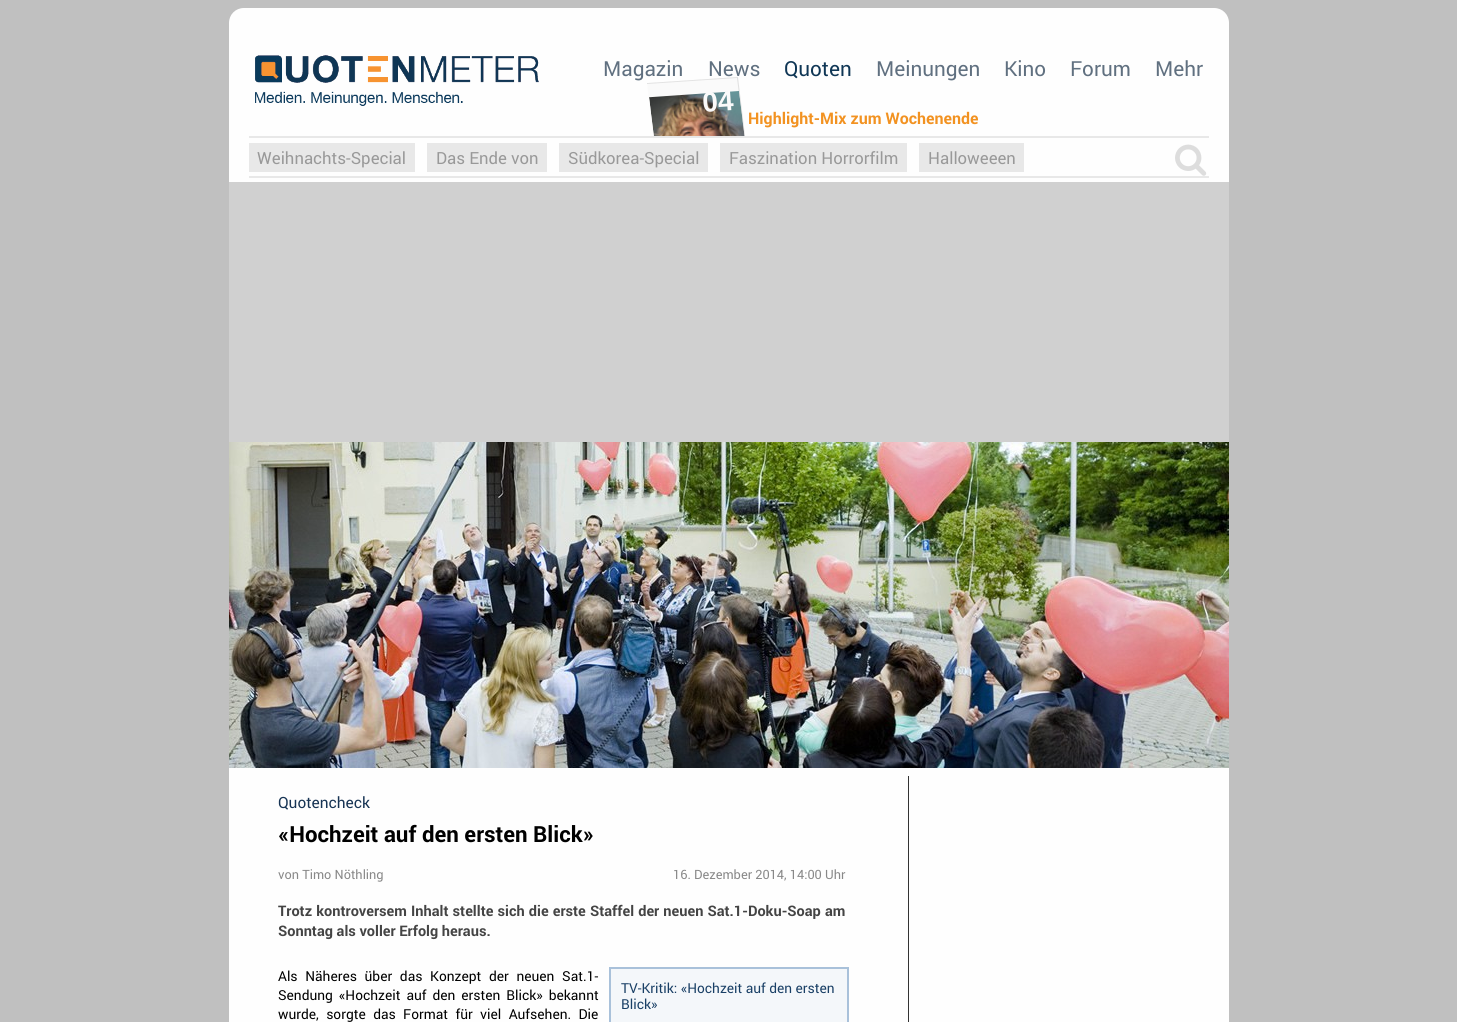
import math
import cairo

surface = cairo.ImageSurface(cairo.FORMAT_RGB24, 1457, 1022)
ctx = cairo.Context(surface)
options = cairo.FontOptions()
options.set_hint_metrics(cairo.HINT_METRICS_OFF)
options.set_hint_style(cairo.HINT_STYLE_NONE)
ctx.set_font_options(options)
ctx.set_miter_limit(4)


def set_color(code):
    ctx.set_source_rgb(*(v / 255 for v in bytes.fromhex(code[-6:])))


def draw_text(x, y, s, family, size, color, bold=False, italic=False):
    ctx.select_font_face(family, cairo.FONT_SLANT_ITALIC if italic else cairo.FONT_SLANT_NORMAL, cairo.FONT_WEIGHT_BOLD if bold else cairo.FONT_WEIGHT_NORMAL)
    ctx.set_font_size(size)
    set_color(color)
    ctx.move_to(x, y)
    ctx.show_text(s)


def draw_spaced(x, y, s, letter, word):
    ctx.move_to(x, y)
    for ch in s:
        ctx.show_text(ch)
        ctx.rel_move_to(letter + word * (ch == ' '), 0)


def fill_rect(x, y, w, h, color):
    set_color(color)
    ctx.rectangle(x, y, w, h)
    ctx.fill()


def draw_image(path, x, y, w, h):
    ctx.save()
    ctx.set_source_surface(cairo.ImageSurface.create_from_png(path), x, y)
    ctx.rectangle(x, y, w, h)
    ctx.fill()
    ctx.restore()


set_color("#c0c0c0")
ctx.paint()
fill_rect(229, 136, 1000, 886, "#fefefe")
ctx.new_path()
ctx.move_to(244, 8)
ctx.line_to(1214, 8)
ctx.curve_to(1222.5, 8, 1229, 14.5, 1229, 23)
ctx.line_to(1229, 136)
ctx.line_to(229, 136)
ctx.line_to(229, 23)
ctx.curve_to(229, 14.5, 235.5, 8, 244, 8)
ctx.close_path()
ctx.fill()
draw_image("assets/img1.png", 255, 55, 284, 51)
ctx.save()
ctx.rectangle(644, 74, 335, 66)
ctx.clip()
set_color("#fafafa")
ctx.new_path()
ctx.move_to(647, 83)
ctx.line_to(738, 77)
ctx.line_to(751, 186)
ctx.line_to(660, 192)
ctx.close_path()
ctx.fill()
ctx.restore()
set_color("#e2e2e2")
ctx.new_path()
ctx.move_to(647, 83)
ctx.line_to(738, 77)
ctx.line_to(737, 78)
ctx.line_to(647, 84)
ctx.close_path()
ctx.fill()
draw_text(603, 76, "Magazin", "Roboto", 20.75, "#607080")
draw_text(708, 76, "News", "Roboto", 20.75, "#607080")
draw_text(784, 76, "Quoten", "Roboto", 20.75, "#0f3655")
draw_text(876, 76, "Meinungen", "Roboto", 20.75, "#607080")
draw_text(1004, 76, "Kino", "Roboto", 20.75, "#607080")
draw_text(1070, 76, "Forum", "Roboto", 20.75, "#607080")
draw_text(1155, 76, "Mehr", "Roboto", 20.75, "#607080")
ctx.save()
ctx.rectangle(644, 74, 335, 66)
ctx.clip()
ctx.set_source_rgba(0, 0, 0, 0.1)
ctx.new_path()
ctx.move_to(738, 77)
ctx.line_to(751, 186)
ctx.line_to(750, 186)
ctx.line_to(737, 78)
ctx.close_path()
ctx.fill()
ctx.restore()
draw_image("assets/img2.png", 649, 91, 96, 45)
ctx.save()
ctx.translate(703, 112)
ctx.rotate(-4 * math.pi / 180)
draw_text(0, 0, "04", "Liberation Sans", 28, "#fafafa", bold=True)
ctx.restore()
draw_text(748, 124, "Highlight-Mix zum Wochenende", "Roboto", 16, "#f29221", bold=True)
fill_rect(654, 138, 92, 2, "#fefefe")
fill_rect(249, 136, 960, 2, "#e8e8e8")
fill_rect(249, 176, 960, 2, "#e8e8e8")
fill_rect(249, 143, 166, 29, "#e8e8e8")
draw_text(257, 164, "Weihnachts-Special", "Roboto", 16.75, "#999999")
fill_rect(427, 143, 120, 29, "#e8e8e8")
draw_text(436, 164, "Das Ende von", "Roboto", 16.75, "#999999")
fill_rect(559, 143, 149, 29, "#e8e8e8")
draw_text(568, 164, "Südkorea-Special", "Roboto", 16.75, "#999999")
fill_rect(720, 143, 187, 29, "#e8e8e8")
draw_text(729, 164, "Faszination Horrorfilm", "Roboto", 16.75, "#999999")
fill_rect(919, 143, 105, 29, "#e8e8e8")
draw_text(928, 164, "Halloweeen", "Roboto", 16.75, "#999999")
draw_image("assets/img3.png", 1175, 144, 32, 32)
fill_rect(229, 182, 1000, 260, "#d0d0d0")
draw_image("assets/img4.png", 229, 442, 1000, 326)
draw_text(278, 808, "Quotencheck", "Roboto", 15.5, "#173454")
draw_text(278, 842, "«Hochzeit auf den ersten Blick»", "Roboto", 22.25, "#000000", bold=True)
draw_text(278, 879, "von Timo Nöthling", "Roboto", 12.8, "#888888")
draw_text(673, 879, "16. Dezember 2014, 14:00 Uhr", "Roboto", 12.8, "#888888")
ctx.select_font_face("Roboto", cairo.FONT_SLANT_NORMAL, cairo.FONT_WEIGHT_BOLD)
ctx.set_font_size(14.55)
set_color("#444444")
draw_spaced(278, 916, "Trotz kontroversem Inhalt stellte sich die erste Staffel der neuen Sat.1-Doku-Soap am", 0, 0.5)
draw_text(278, 936, "Sonntag als voller Erfolg heraus.", "Roboto", 14.55, "#444444", bold=True)
ctx.select_font_face("Roboto")
ctx.set_font_size(13.75)
set_color("#000000")
draw_spaced(278, 981, "Als Näheres über das Konzept der neuen Sat.1-", 0, 4.25)
draw_spaced(278, 1000, "Sendung «Hochzeit auf den ersten Blick» bekannt", 0, 2.5)
set_color("#f4f7fa")
ctx.rectangle(610, 968, 238, 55)
ctx.fill_preserve()
set_color("#a9c1da")
ctx.stroke()
draw_text(621, 993, "TV-Kritik: «Hochzeit auf den ersten", "Roboto", 13.75, "#1a4066")
draw_text(621, 1009, "Blick»", "Roboto", 13.75, "#1a4066")
set_color("#000000")
draw_spaced(278, 1019, "wurde, sorgte das Format für viel Aufsehen. Die", 0, 4)
fill_rect(908, 776, 1, 246, "#333333")
surface.write_to_png("output.png")
